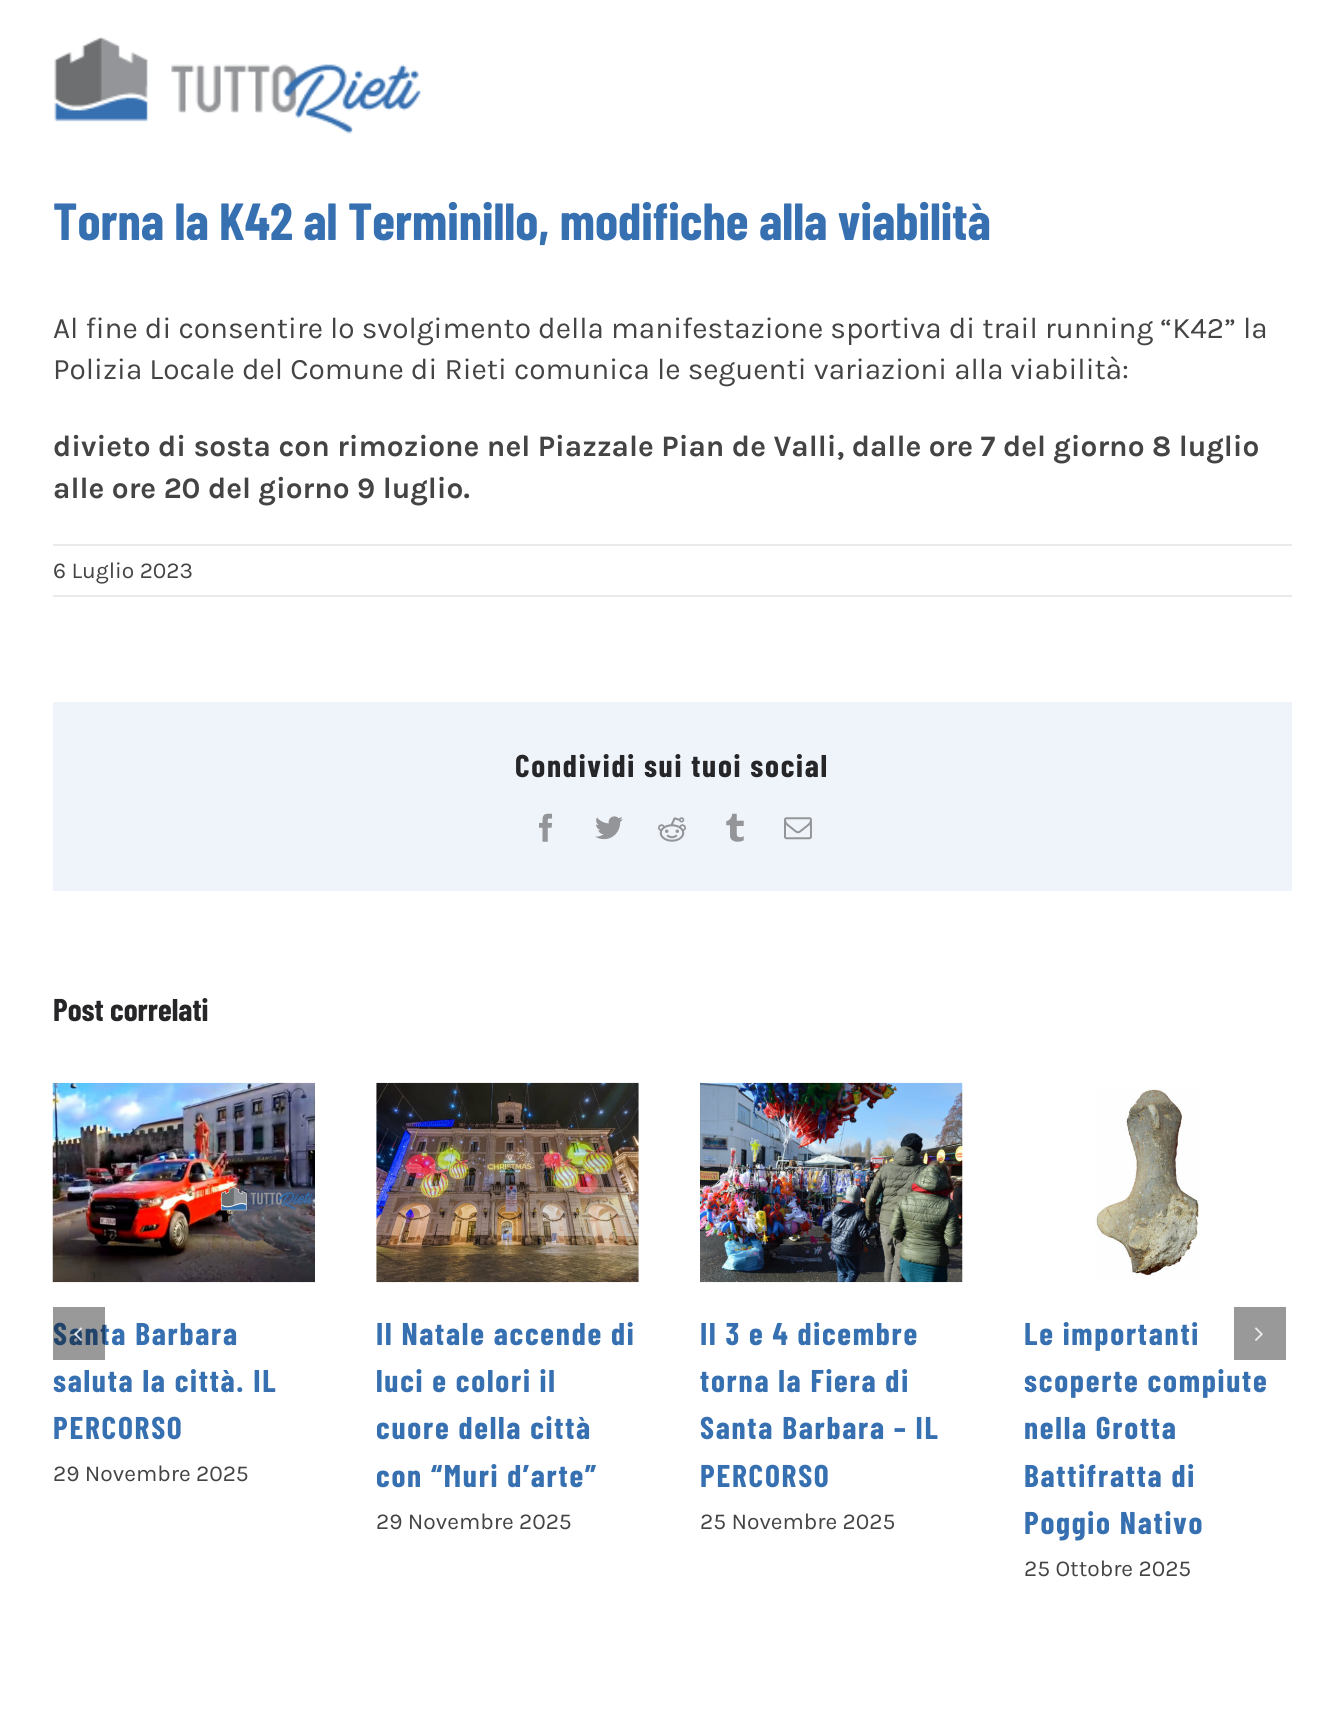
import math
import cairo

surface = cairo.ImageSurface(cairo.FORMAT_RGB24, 1343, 1729)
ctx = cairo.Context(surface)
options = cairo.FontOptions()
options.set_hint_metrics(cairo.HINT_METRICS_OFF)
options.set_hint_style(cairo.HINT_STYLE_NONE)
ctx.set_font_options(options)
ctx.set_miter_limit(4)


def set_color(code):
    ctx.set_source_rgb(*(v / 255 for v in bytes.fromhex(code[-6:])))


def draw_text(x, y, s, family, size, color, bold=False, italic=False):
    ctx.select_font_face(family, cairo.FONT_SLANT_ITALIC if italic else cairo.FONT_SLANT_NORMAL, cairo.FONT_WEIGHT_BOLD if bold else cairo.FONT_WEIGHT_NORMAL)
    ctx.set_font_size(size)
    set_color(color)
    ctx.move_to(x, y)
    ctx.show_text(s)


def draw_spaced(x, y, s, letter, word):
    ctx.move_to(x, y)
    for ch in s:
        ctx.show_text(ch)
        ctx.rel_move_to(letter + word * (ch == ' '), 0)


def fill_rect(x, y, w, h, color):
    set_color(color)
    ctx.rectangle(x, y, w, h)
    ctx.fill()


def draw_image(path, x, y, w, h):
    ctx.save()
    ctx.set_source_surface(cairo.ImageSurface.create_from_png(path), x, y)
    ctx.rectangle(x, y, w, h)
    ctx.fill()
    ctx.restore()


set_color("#ffffff")
ctx.paint()
draw_image("assets/img1.png", 54, 36, 367, 98)
draw_text(53, 240, "Torna la K42 al Terminillo, modifiche alla viabilità", "Barlow Condensed", 52.2, "#3770b1", bold=True)
draw_text(53, 338, "Al fine di consentire lo svolgimento della manifestazione sportiva di trail running “K42” la", "Karla", 29.75, "#444444")
draw_text(53, 379, "Polizia Locale del Comune di Rieti comunica le seguenti variazioni alla viabilità:", "Karla", 29.75, "#444444")
draw_text(53, 456, "divieto di sosta con rimozione nel Piazzale Pian de Valli, dalle ore 7 del giorno 8 luglio", "Karla", 29.75, "#444444", bold=True)
draw_text(53, 498, "alle ore 20 del giorno 9 luglio.", "Karla", 29.75, "#444444", bold=True)
fill_rect(53, 544, 1239, 2, "#ebeaea")
fill_rect(53, 595, 1239, 2, "#ebeaea")
draw_text(53, 578, "6 Luglio 2023", "Karla", 22.75, "#444444")
fill_rect(53, 702, 1239, 189, "#eff4fa")
ctx.select_font_face("Barlow Condensed", cairo.FONT_SLANT_NORMAL, cairo.FONT_WEIGHT_BOLD)
ctx.set_font_size(31.5)
set_color("#262528")
draw_spaced(515, 777, "Condividi sui tuoi social", 1.75, 0)
draw_image("assets/img2.png", 539, 813, 14, 29)
draw_image("assets/img3.png", 595, 816, 28, 24)
draw_image("assets/img4.png", 658, 817, 28, 25)
draw_image("assets/img5.png", 726, 813, 18, 29)
draw_image("assets/img6.png", 784, 817, 28, 23)
draw_text(53, 1021, "Post correlati", "Barlow Condensed", 31.5, "#262528", bold=True)
set_color("#3770b1")
draw_spaced(53, 1345, "Santa Barbara", 1.75, 0)
ctx.set_source_rgba(0, 0, 0, 0.4)
ctx.rectangle(53, 1307, 52, 53)
ctx.fill()
draw_image("assets/img7.png", 74, 1327, 8, 14)
fill_rect(1234, 1307, 52, 53, "#999999")
draw_image("assets/img8.png", 1255, 1327, 8, 14)
draw_image("assets/img9.png", 52, 1082, 263, 201)
set_color("#3770b1")
draw_spaced(53, 1392, "saluta la città. IL", 1.75, 0)
draw_spaced(53, 1439, "PERCORSO", 1.75, 0)
draw_text(53, 1481, "29 Novembre 2025", "Karla", 22.75, "#444444")
draw_image("assets/img10.png", 376, 1082, 263, 201)
ctx.select_font_face("Barlow Condensed", cairo.FONT_SLANT_NORMAL, cairo.FONT_WEIGHT_BOLD)
ctx.set_font_size(31.5)
set_color("#3770b1")
draw_spaced(376, 1345, "Il Natale accende di", 1.75, 0)
draw_spaced(376, 1392, "luci e colori il", 1.75, 0)
draw_spaced(376, 1439, "cuore della città", 1.75, 0)
draw_spaced(376, 1487, "con “Muri d’arte”", 1.75, 0)
draw_text(376, 1529, "29 Novembre 2025", "Karla", 22.75, "#444444")
draw_image("assets/img11.png", 700, 1082, 263, 201)
ctx.select_font_face("Barlow Condensed", cairo.FONT_SLANT_NORMAL, cairo.FONT_WEIGHT_BOLD)
ctx.set_font_size(31.5)
set_color("#3770b1")
draw_spaced(700, 1345, "Il 3 e 4 dicembre", 1.75, 0)
draw_spaced(700, 1392, "torna la Fiera di", 1.75, 0)
draw_spaced(700, 1439, "Santa Barbara – IL", 1.75, 0)
draw_spaced(700, 1487, "PERCORSO", 1.75, 0)
draw_text(700, 1529, "25 Novembre 2025", "Karla", 22.75, "#444444")
draw_image("assets/img12.png", 1095, 1087, 105, 192)
ctx.select_font_face("Barlow Condensed", cairo.FONT_SLANT_NORMAL, cairo.FONT_WEIGHT_BOLD)
ctx.set_font_size(31.5)
set_color("#3770b1")
draw_spaced(1024, 1345, "Le importanti", 1.75, 0)
draw_spaced(1024, 1392, "scoperte compiute", 1.75, 0)
draw_spaced(1024, 1439, "nella Grotta", 1.75, 0)
draw_spaced(1024, 1487, "Battifratta di", 1.75, 0)
draw_spaced(1024, 1534, "Poggio Nativo", 1.75, 0)
draw_text(1024, 1576, "25 Ottobre 2025", "Karla", 22.75, "#444444")
surface.write_to_png("output.png")
